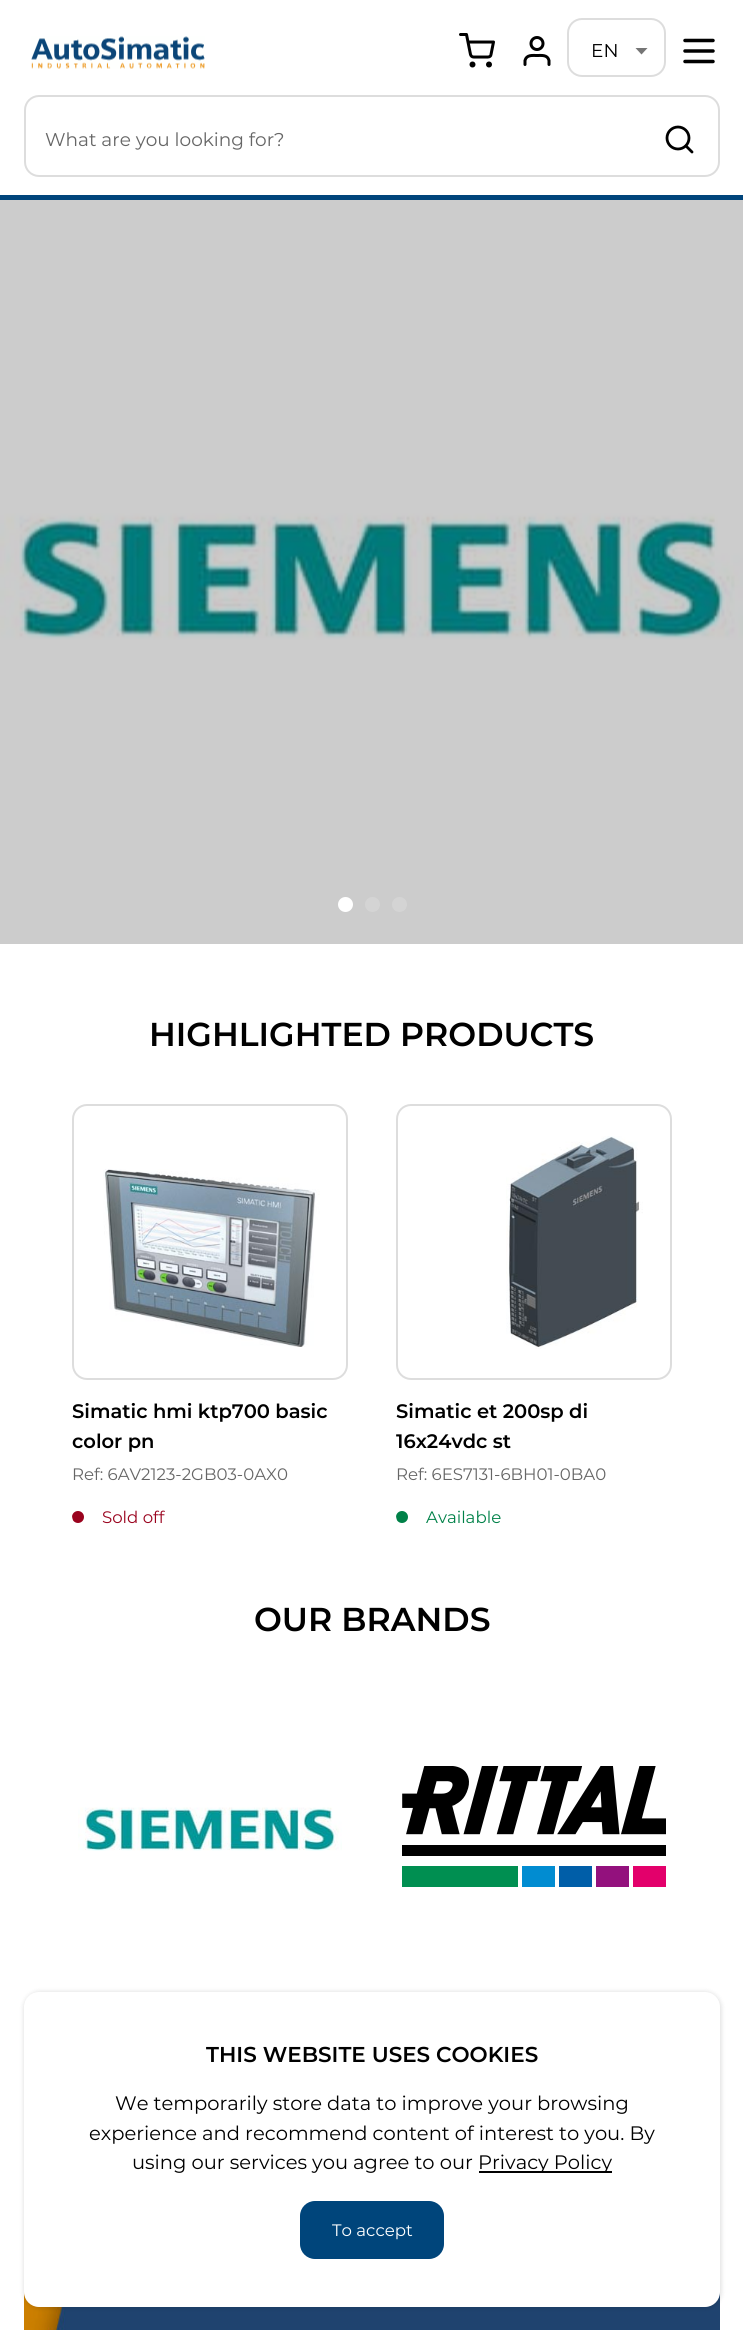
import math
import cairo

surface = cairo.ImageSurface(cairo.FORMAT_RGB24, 743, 2330)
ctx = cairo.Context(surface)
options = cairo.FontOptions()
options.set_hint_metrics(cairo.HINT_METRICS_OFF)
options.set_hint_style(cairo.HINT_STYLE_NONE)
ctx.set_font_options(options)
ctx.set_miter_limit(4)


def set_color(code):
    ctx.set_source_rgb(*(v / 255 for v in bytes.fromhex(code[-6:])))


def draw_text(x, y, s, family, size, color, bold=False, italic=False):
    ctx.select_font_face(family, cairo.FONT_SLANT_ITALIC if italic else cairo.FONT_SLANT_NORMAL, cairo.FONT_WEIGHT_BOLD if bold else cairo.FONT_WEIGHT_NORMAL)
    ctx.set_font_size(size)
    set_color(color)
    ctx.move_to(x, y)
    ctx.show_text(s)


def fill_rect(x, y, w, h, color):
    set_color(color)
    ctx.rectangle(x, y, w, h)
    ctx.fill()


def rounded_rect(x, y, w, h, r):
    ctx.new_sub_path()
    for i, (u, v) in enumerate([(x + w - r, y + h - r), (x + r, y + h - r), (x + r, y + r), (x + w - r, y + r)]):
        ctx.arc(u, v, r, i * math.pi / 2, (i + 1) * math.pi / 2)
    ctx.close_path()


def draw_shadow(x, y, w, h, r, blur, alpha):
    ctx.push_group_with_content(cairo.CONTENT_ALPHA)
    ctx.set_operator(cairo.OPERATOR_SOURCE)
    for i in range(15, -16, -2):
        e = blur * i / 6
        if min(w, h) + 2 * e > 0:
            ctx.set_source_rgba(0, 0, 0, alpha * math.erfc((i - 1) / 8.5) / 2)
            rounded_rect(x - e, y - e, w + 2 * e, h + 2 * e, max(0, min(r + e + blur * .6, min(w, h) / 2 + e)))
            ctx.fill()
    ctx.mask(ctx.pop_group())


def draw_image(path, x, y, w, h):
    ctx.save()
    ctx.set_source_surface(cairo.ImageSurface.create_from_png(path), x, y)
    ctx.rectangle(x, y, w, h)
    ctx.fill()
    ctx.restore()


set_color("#ffffff")
ctx.paint()
fill_rect(0, 195, 743, 5, "#00457b")
draw_image("assets/img1.png", 31, 36, 174, 33)
ctx.arc(472.5, 64.5, 1.5, 0, 2 * math.pi)
set_color("#000000")
ctx.set_line_width(3)
ctx.stroke()
ctx.arc(489, 64.5, 1.5, 0, 2 * math.pi)
ctx.stroke()
ctx.new_path()
ctx.move_to(460.5, 34.5)
ctx.line_to(466.5, 34.5)
ctx.line_to(470.5, 54.5)
ctx.curve_to(471, 56, 472, 57, 473.5, 57)
ctx.line_to(488, 57)
ctx.curve_to(489.5, 57, 491, 56, 491, 54.5)
ctx.line_to(493.5, 42)
ctx.line_to(468, 42)
ctx.set_line_cap(cairo.LINE_CAP_ROUND)
ctx.set_line_join(cairo.LINE_JOIN_ROUND)
ctx.stroke()
ctx.new_path()
ctx.move_to(549, 64.5)
ctx.line_to(549, 60.5)
ctx.curve_to(547.5, 54.5, 541.5, 55.5, 537, 55.5)
ctx.curve_to(532.5, 55.5, 526.5, 54.5, 525, 60.5)
ctx.line_to(525, 64.5)
ctx.stroke()
ctx.arc(537, 43.5, 6, 0, 2 * math.pi)
ctx.set_line_cap(cairo.LINE_CAP_BUTT)
ctx.set_line_join(cairo.LINE_JOIN_MITER)
ctx.stroke()
set_color("#757575")
ctx.new_path()
ctx.move_to(635.5, 48)
ctx.line_to(641.5, 54.5)
ctx.line_to(647.5, 48)
ctx.close_path()
ctx.fill()
rounded_rect(568, 19, 97, 57, 14)
set_color("#dddddd")
ctx.set_line_width(2)
ctx.stroke()
draw_text(591, 57, "EN", "Montserrat", 18.5, "#000000")
ctx.new_path()
ctx.move_to(685, 40.5)
ctx.line_to(713, 40.5)
ctx.move_to(685, 51)
ctx.line_to(713, 51)
ctx.move_to(685, 61.5)
ctx.line_to(713, 61.5)
ctx.set_line_width(3.5)
ctx.set_line_cap(cairo.LINE_CAP_ROUND)
ctx.set_line_join(cairo.LINE_JOIN_ROUND)
ctx.stroke()
rounded_rect(25, 96, 694, 80, 14)
set_color("#dddddd")
ctx.set_line_width(2)
ctx.set_line_cap(cairo.LINE_CAP_BUTT)
ctx.set_line_join(cairo.LINE_JOIN_MITER)
ctx.stroke()
draw_text(45, 146, "What are you looking for?", "Montserrat", 18.5, "#666666")
ctx.new_path()
ctx.arc(678, 138, 11, 0, 2 * math.pi)
set_color("#000000")
ctx.set_line_width(2.8)
ctx.stroke()
ctx.new_path()
ctx.move_to(692, 152)
ctx.line_to(686, 146)
ctx.set_line_cap(cairo.LINE_CAP_ROUND)
ctx.set_line_join(cairo.LINE_JOIN_ROUND)
ctx.stroke()
draw_image("assets/img2.png", 0, 200, 743, 744)
set_color("#ffffff")
ctx.arc(345.5, 904.5, 7.5, 0, 2 * math.pi)
ctx.fill()
set_color("#d4d4d4")
ctx.arc(372.5, 904.5, 7.5, 0, 2 * math.pi)
ctx.fill()
ctx.arc(399.5, 904.5, 7.5, 0, 2 * math.pi)
ctx.fill()
draw_text(149, 1046, "HIGHLIGHTED PRODUCTS", "Montserrat SemiBold", 33.1, "#000000")
rounded_rect(73, 1105, 274, 274, 14)
set_color("#dddddd")
ctx.set_line_width(2)
ctx.set_line_cap(cairo.LINE_CAP_BUTT)
ctx.set_line_join(cairo.LINE_JOIN_MITER)
ctx.stroke()
draw_image("assets/img3.png", 103, 1169, 217, 178)
draw_text(72, 1418, "Simatic hmi ktp700 basic", "Montserrat SemiBold", 19.5, "#000000")
draw_text(72, 1448, "color pn", "Montserrat SemiBold", 19.5, "#000000")
draw_text(72, 1480, "Ref: 6AV2123-2GB03-0AX0", "Montserrat", 16.6, "#666666")
ctx.save()
rounded_rect(72, 1104, 276, 426, 15)
ctx.clip()
set_color("#9a031e")
ctx.arc(78, 1517, 6, 0, 2 * math.pi)
ctx.fill()
ctx.restore()
draw_text(102, 1523, "Sold off", "Montserrat", 16.6, "#9a031e")
rounded_rect(397, 1105, 274, 274, 14)
set_color("#dddddd")
ctx.stroke()
draw_image("assets/img4.png", 506, 1136, 137, 213)
draw_text(396, 1418, "Simatic et 200sp di", "Montserrat SemiBold", 19.5, "#000000")
draw_text(396, 1448, "16x24vdc st", "Montserrat SemiBold", 19.5, "#000000")
draw_text(396, 1480, "Ref: 6ES7131-6BH01-0BA0", "Montserrat", 16.6, "#666666")
ctx.save()
rounded_rect(396, 1104, 276, 426, 15)
ctx.clip()
set_color("#008148")
ctx.arc(402, 1517, 6, 0, 2 * math.pi)
ctx.fill()
ctx.restore()
draw_text(426, 1523, "Available", "Montserrat", 16.6, "#008148")
draw_text(254, 1631, "OUR BRANDS", "Montserrat SemiBold", 33.1, "#000000")
draw_image("assets/img5.png", 78, 1807, 264, 44)
draw_image("assets/img6.png", 402, 1766, 264, 121)
draw_image("assets/img7.png", 24, 2292, 696, 38)
set_color("#000000")
draw_shadow(23, 1991, 699, 318, 17, 2, 0.1)
set_color("#ffffff")
rounded_rect(24, 1992, 696, 315, 15)
ctx.fill()
draw_text(206, 2062, "THIS WEBSITE USES COOKIES", "Montserrat SemiBold", 21.5, "#000000")
draw_text(115, 2110, "We temporarily store data to improve your browsing", "Montserrat", 19.5, "#000000")
draw_text(89, 2140, "experience and recommend content of interest to you. By", "Montserrat", 19.5, "#000000")
draw_text(132, 2169, "using our services you agree to our", "Montserrat", 19.5, "#000000")
fill_rect(479, 2171, 133, 2, "#000000")
draw_text(478, 2169, "Privacy Policy", "Montserrat", 19.5, "#000000")
set_color("#00457b")
rounded_rect(300, 2201, 144, 58, 15)
ctx.fill()
draw_text(332, 2236, "To accept", "Montserrat", 16.6, "#ffffff")
surface.write_to_png("output.png")
